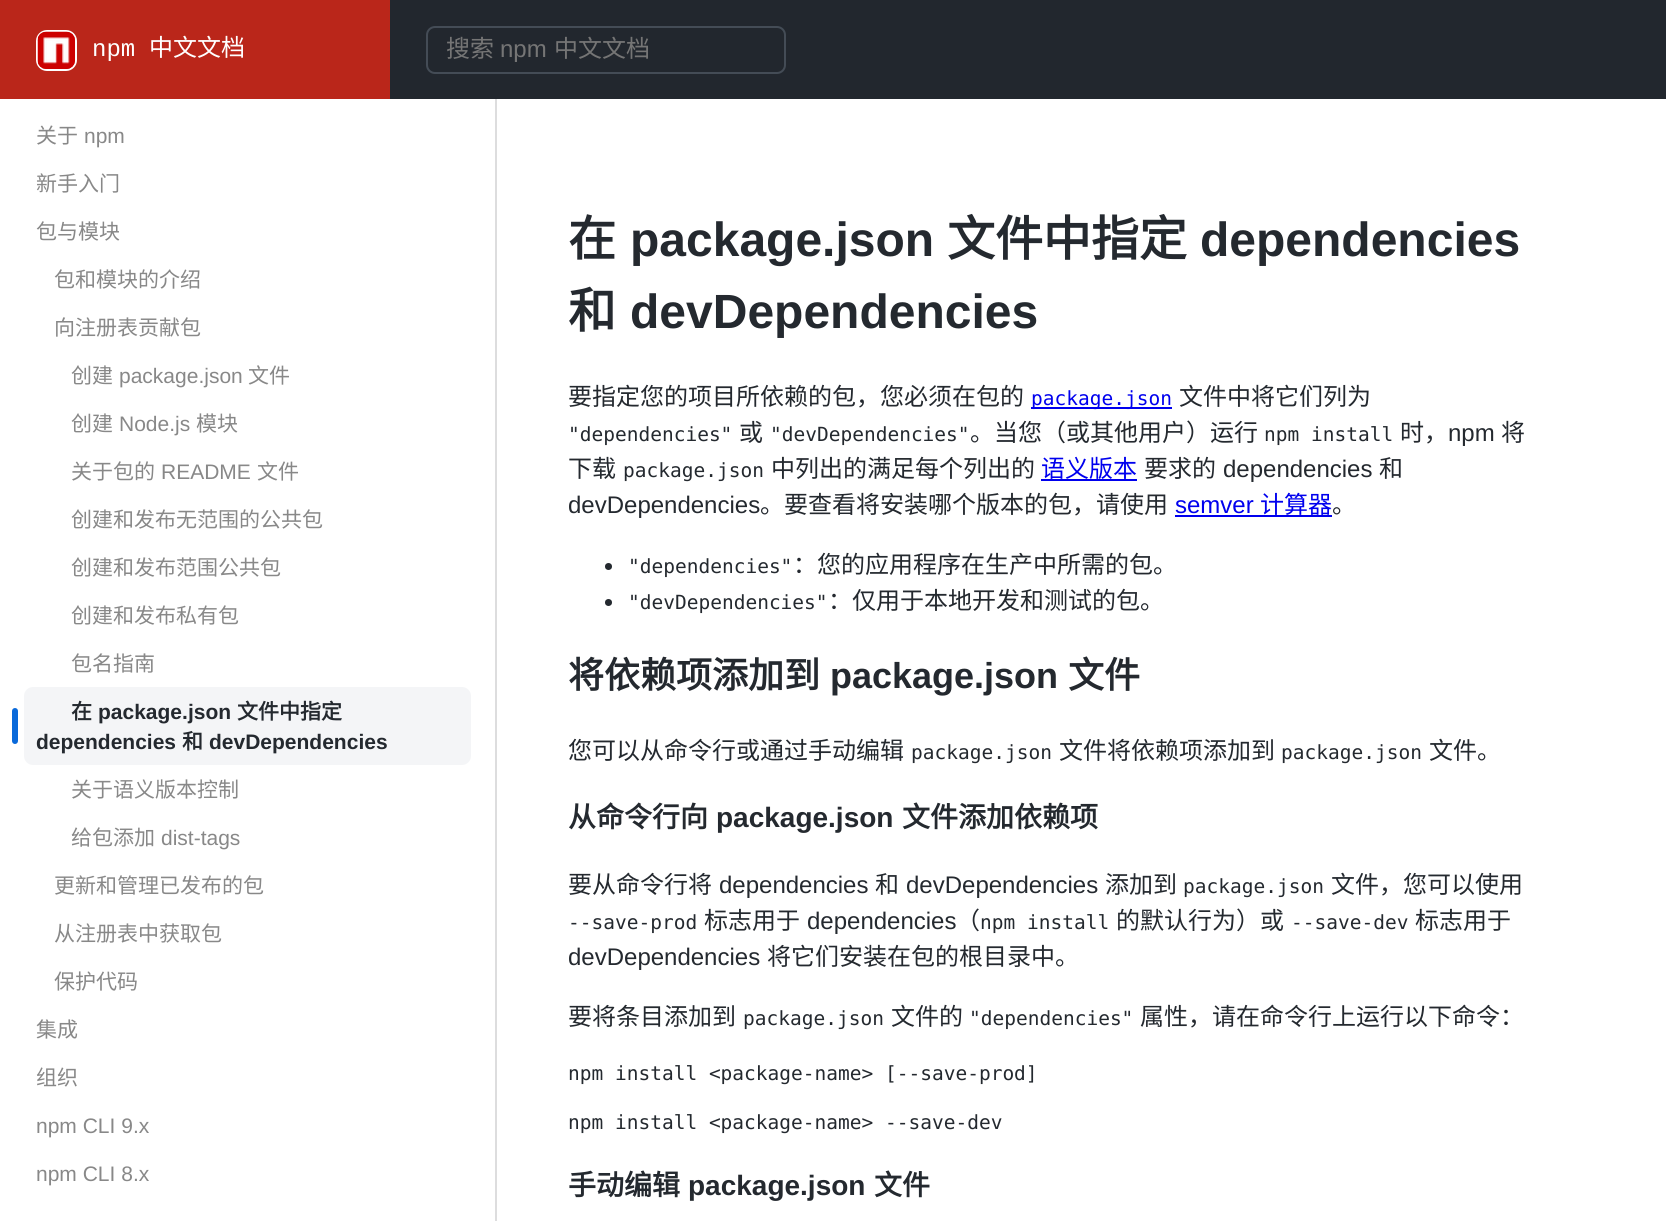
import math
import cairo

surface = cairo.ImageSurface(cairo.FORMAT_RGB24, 1666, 1221)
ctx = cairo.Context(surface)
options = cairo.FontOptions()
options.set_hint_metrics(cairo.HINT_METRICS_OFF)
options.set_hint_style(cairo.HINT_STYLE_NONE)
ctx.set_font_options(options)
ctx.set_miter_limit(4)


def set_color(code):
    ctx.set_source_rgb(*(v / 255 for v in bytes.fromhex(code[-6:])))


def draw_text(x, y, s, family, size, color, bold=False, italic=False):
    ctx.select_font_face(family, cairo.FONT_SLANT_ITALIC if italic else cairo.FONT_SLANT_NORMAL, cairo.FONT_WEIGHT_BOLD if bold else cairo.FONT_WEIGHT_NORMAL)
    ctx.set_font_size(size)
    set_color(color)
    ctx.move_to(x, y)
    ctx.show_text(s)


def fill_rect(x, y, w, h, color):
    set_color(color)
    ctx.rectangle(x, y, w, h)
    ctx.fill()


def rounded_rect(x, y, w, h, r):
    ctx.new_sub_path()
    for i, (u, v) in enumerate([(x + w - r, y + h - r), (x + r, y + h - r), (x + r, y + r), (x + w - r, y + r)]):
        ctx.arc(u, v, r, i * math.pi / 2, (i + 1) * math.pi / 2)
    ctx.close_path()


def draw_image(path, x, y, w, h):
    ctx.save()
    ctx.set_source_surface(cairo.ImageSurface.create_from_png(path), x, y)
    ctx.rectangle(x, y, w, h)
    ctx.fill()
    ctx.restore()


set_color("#ffffff")
ctx.paint()
fill_rect(390, 0, 1276, 99, "#22272e")
fill_rect(0, 0, 390, 99, "#ba261a")
rounded_rect(37, 31, 39, 39, 10)
set_color("#ffffff")
ctx.stroke()
draw_image("assets/img1.png", 37, 31, 38, 38)
draw_text(92, 56, "npm", "Liberation Mono", 24, "#ffffff")
draw_text(149, 56, "中文文档", "Noto Sans CJK SC", 24, "#ffffff")
rounded_rect(427, 27, 358, 46, 8)
set_color("#444c56")
ctx.stroke()
draw_text(446, 57, "搜索", "Noto Sans CJK SC", 24, "#757575")
draw_text(500, 57, "npm", "Liberation Sans", 24, "#757575")
draw_text(554, 57, "中文文档", "Noto Sans CJK SC", 24, "#757575")
fill_rect(495, 99, 2, 1122, "#ddddde")
draw_text(36, 143, "关于", "Noto Sans CJK SC", 21, "#888888")
draw_text(84, 143, "npm", "Liberation Sans", 21, "#888888")
draw_text(36, 191, "新手入门", "Noto Sans CJK SC", 21, "#888888")
draw_text(36, 239, "包与模块", "Noto Sans CJK SC", 21, "#888888")
draw_text(54, 287, "包和模块的介绍", "Noto Sans CJK SC", 21, "#888888")
draw_text(54, 335, "向注册表贡献包", "Noto Sans CJK SC", 21, "#888888")
draw_text(71, 383, "创建", "Noto Sans CJK SC", 21, "#888888")
draw_text(119, 383, "package.json", "Liberation Sans", 21, "#888888")
draw_text(248, 383, "文件", "Noto Sans CJK SC", 21, "#888888")
draw_text(71, 431, "创建", "Noto Sans CJK SC", 21, "#888888")
draw_text(119, 431, "Node.js", "Liberation Sans", 21, "#888888")
draw_text(196, 431, "模块", "Noto Sans CJK SC", 21, "#888888")
draw_text(71, 479, "关于包的", "Noto Sans CJK SC", 21, "#888888")
draw_text(161, 479, "README", "Liberation Sans", 21, "#888888")
draw_text(257, 479, "文件", "Noto Sans CJK SC", 21, "#888888")
draw_text(71, 527, "创建和发布无范围的公共包", "Noto Sans CJK SC", 21, "#888888")
draw_text(71, 575, "创建和发布范围公共包", "Noto Sans CJK SC", 21, "#888888")
draw_text(71, 623, "创建和发布私有包", "Noto Sans CJK SC", 21, "#888888")
draw_text(71, 671, "包名指南", "Noto Sans CJK SC", 21, "#888888")
set_color("#f4f5f7")
rounded_rect(24, 687, 447, 78, 9)
ctx.fill()
set_color("#0969da")
rounded_rect(12, 708, 6, 36, 3)
ctx.fill()
draw_text(71, 719, "在", "Noto Sans CJK SC", 21, "#24292f", bold=True)
draw_text(98, 719, "package.json", "Liberation Sans", 21, "#24292f", bold=True)
draw_text(237, 719, "文件中指定", "Noto Sans CJK SC", 21, "#24292f", bold=True)
draw_text(36, 749, "dependencies", "Liberation Sans", 21, "#24292f", bold=True)
draw_text(182, 749, "和", "Noto Sans CJK SC", 21, "#24292f", bold=True)
draw_text(209, 749, "devDependencies", "Liberation Sans", 21, "#24292f", bold=True)
draw_text(71, 797, "关于语义版本控制", "Noto Sans CJK SC", 21, "#888888")
draw_text(71, 845, "给包添加", "Noto Sans CJK SC", 21, "#888888")
draw_text(161, 845, "dist-tags", "Liberation Sans", 21, "#888888")
draw_text(54, 893, "更新和管理已发布的包", "Noto Sans CJK SC", 21, "#888888")
draw_text(54, 941, "从注册表中获取包", "Noto Sans CJK SC", 21, "#888888")
draw_text(54, 989, "保护代码", "Noto Sans CJK SC", 21, "#888888")
draw_text(36, 1037, "集成", "Noto Sans CJK SC", 21, "#888888")
draw_text(36, 1085, "组织", "Noto Sans CJK SC", 21, "#888888")
draw_text(36, 1133, "npm CLI 9.x", "Liberation Sans", 21, "#888888")
draw_text(36, 1181, "npm CLI 8.x", "Liberation Sans", 21, "#888888")
draw_text(568, 256, "在", "Noto Sans CJK SC", 48, "#24292f", bold=True)
draw_text(630, 256, "package.json", "Liberation Sans", 48, "#24292f", bold=True)
draw_text(947, 256, "文件中指定", "Noto Sans CJK SC", 48, "#24292f", bold=True)
draw_text(1200, 256, "dependencies", "Liberation Sans", 48, "#24292f", bold=True)
draw_text(568, 328, "和", "Noto Sans CJK SC", 48, "#24292f", bold=True)
draw_text(630, 328, "devDependencies", "Liberation Sans", 48, "#24292f", bold=True)
draw_text(568, 405, "要指定您的项目所依赖的包，您必须在包的", "Noto Sans CJK SC", 24, "#24292f")
fill_rect(1031, 407, 141, 2, "#0000ee")
draw_text(1031, 405, "package.json", "DejaVu Sans Mono", 19.5, "#0000ee")
draw_text(1179, 405, "文件中将它们列为", "Noto Sans CJK SC", 24, "#24292f")
draw_text(568, 441, "\"dependencies\"", "DejaVu Sans Mono", 19.5, "#24292f")
draw_text(739, 441, "或", "Noto Sans CJK SC", 24, "#24292f")
draw_text(770, 441, "\"devDependencies\"", "DejaVu Sans Mono", 19.5, "#24292f")
draw_text(970, 441, "。当您（或其他用户）运行", "Noto Sans CJK SC", 24, "#24292f")
draw_text(1264, 441, "npm install", "DejaVu Sans Mono", 19.5, "#24292f")
draw_text(1400, 441, "时，", "Noto Sans CJK SC", 24, "#24292f")
draw_text(1448, 441, "npm", "Liberation Sans", 24, "#24292f")
draw_text(1501, 441, "将", "Noto Sans CJK SC", 24, "#24292f")
draw_text(568, 477, "下载", "Noto Sans CJK SC", 24, "#24292f")
draw_text(623, 477, "package.json", "DejaVu Sans Mono", 19.5, "#24292f")
draw_text(771, 477, "中列出的满足每个列出的", "Noto Sans CJK SC", 24, "#24292f")
draw_text(1041, 477, "语义版本", "Noto Sans CJK SC", 24, "#0000ee")
fill_rect(1041, 479, 96, 2, "#0000ee")
draw_text(1144, 477, "要求的", "Noto Sans CJK SC", 24, "#24292f")
draw_text(1223, 477, "dependencies", "Liberation Sans", 24, "#24292f")
draw_text(1379, 477, "和", "Noto Sans CJK SC", 24, "#24292f")
draw_text(568, 513, "devDependencies", "Liberation Sans", 24, "#24292f")
draw_text(760, 513, "。要查看将安装哪个版本的包，请使用", "Noto Sans CJK SC", 24, "#24292f")
draw_text(1175, 513, "semver", "Liberation Sans", 24, "#0000ee")
fill_rect(1175, 515, 157, 2, "#0000ee")
draw_text(1260, 513, "计算器", "Noto Sans CJK SC", 24, "#0000ee")
draw_text(1332, 513, "。", "Noto Sans CJK SC", 24, "#24292f")
ctx.new_path()
ctx.arc(608.5, 566.5, 3.5, 0, 2 * math.pi)
ctx.fill()
draw_text(628, 573, "\"dependencies\"", "DejaVu Sans Mono", 19.5, "#24292f")
draw_text(793, 573, "：您的应用程序在生产中所需的包。", "Noto Sans CJK SC", 24, "#24292f")
ctx.new_path()
ctx.arc(608.5, 602.5, 3.5, 0, 2 * math.pi)
ctx.fill()
draw_text(628, 609, "\"devDependencies\"", "DejaVu Sans Mono", 19.5, "#24292f")
draw_text(828, 609, "：仅用于本地开发和测试的包。", "Noto Sans CJK SC", 24, "#24292f")
draw_text(568, 688, "将依赖项添加到", "Noto Sans CJK SC", 36, "#24292f", bold=True)
draw_text(830, 688, "package.json", "Liberation Sans", 36, "#24292f", bold=True)
draw_text(1068, 688, "文件", "Noto Sans CJK SC", 36, "#24292f", bold=True)
draw_text(568, 759, "您可以从命令行或通过手动编辑", "Noto Sans CJK SC", 24, "#24292f")
draw_text(911, 759, "package.json", "DejaVu Sans Mono", 19.5, "#24292f")
draw_text(1059, 759, "文件将依赖项添加到", "Noto Sans CJK SC", 24, "#24292f")
draw_text(1281, 759, "package.json", "DejaVu Sans Mono", 19.5, "#24292f")
draw_text(1429, 759, "文件。", "Noto Sans CJK SC", 24, "#24292f")
draw_text(568, 827, "从命令行向", "Noto Sans CJK SC", 28, "#24292f", bold=True)
draw_text(716, 827, "package.json", "Liberation Sans", 28, "#24292f", bold=True)
draw_text(902, 827, "文件添加依赖项", "Noto Sans CJK SC", 28, "#24292f", bold=True)
draw_text(568, 893, "要从命令行将", "Noto Sans CJK SC", 24, "#24292f")
draw_text(719, 893, "dependencies", "Liberation Sans", 24, "#24292f")
draw_text(875, 893, "和", "Noto Sans CJK SC", 24, "#24292f")
draw_text(906, 893, "devDependencies", "Liberation Sans", 24, "#24292f")
draw_text(1105, 893, "添加到", "Noto Sans CJK SC", 24, "#24292f")
draw_text(1183, 893, "package.json", "DejaVu Sans Mono", 19.5, "#24292f")
draw_text(1331, 893, "文件，您可以使用", "Noto Sans CJK SC", 24, "#24292f")
draw_text(568, 929, "--save-prod", "DejaVu Sans Mono", 19.5, "#24292f")
draw_text(704, 929, "标志用于", "Noto Sans CJK SC", 24, "#24292f")
draw_text(807, 929, "dependencies", "Liberation Sans", 24, "#24292f")
draw_text(956, 929, "（", "Noto Sans CJK SC", 24, "#24292f")
draw_text(980, 929, "npm install", "DejaVu Sans Mono", 19.5, "#24292f")
draw_text(1116, 929, "的默认行为）或", "Noto Sans CJK SC", 24, "#24292f")
draw_text(1291, 929, "--save-dev", "DejaVu Sans Mono", 19.5, "#24292f")
draw_text(1415, 929, "标志用于", "Noto Sans CJK SC", 24, "#24292f")
draw_text(568, 965, "devDependencies", "Liberation Sans", 24, "#24292f")
draw_text(767, 965, "将它们安装在包的根目录中。", "Noto Sans CJK SC", 24, "#24292f")
draw_text(568, 1025, "要将条目添加到", "Noto Sans CJK SC", 24, "#24292f")
draw_text(743, 1025, "package.json", "DejaVu Sans Mono", 19.5, "#24292f")
draw_text(891, 1025, "文件的", "Noto Sans CJK SC", 24, "#24292f")
draw_text(969, 1025, "\"dependencies\"", "DejaVu Sans Mono", 19.5, "#24292f")
draw_text(1140, 1025, "属性，请在命令行上运行以下命令：", "Noto Sans CJK SC", 24, "#24292f")
draw_text(568, 1080, "npm install <package-name> [--save-prod]", "DejaVu Sans Mono", 19.5, "#24292f")
draw_text(568, 1129, "npm install <package-name> --save-dev", "DejaVu Sans Mono", 19.5, "#24292f")
draw_text(568, 1195, "手动编辑", "Noto Sans CJK SC", 28, "#24292f", bold=True)
draw_text(688, 1195, "package.json", "Liberation Sans", 28, "#24292f", bold=True)
draw_text(874, 1195, "文件", "Noto Sans CJK SC", 28, "#24292f", bold=True)
surface.write_to_png("output.png")
